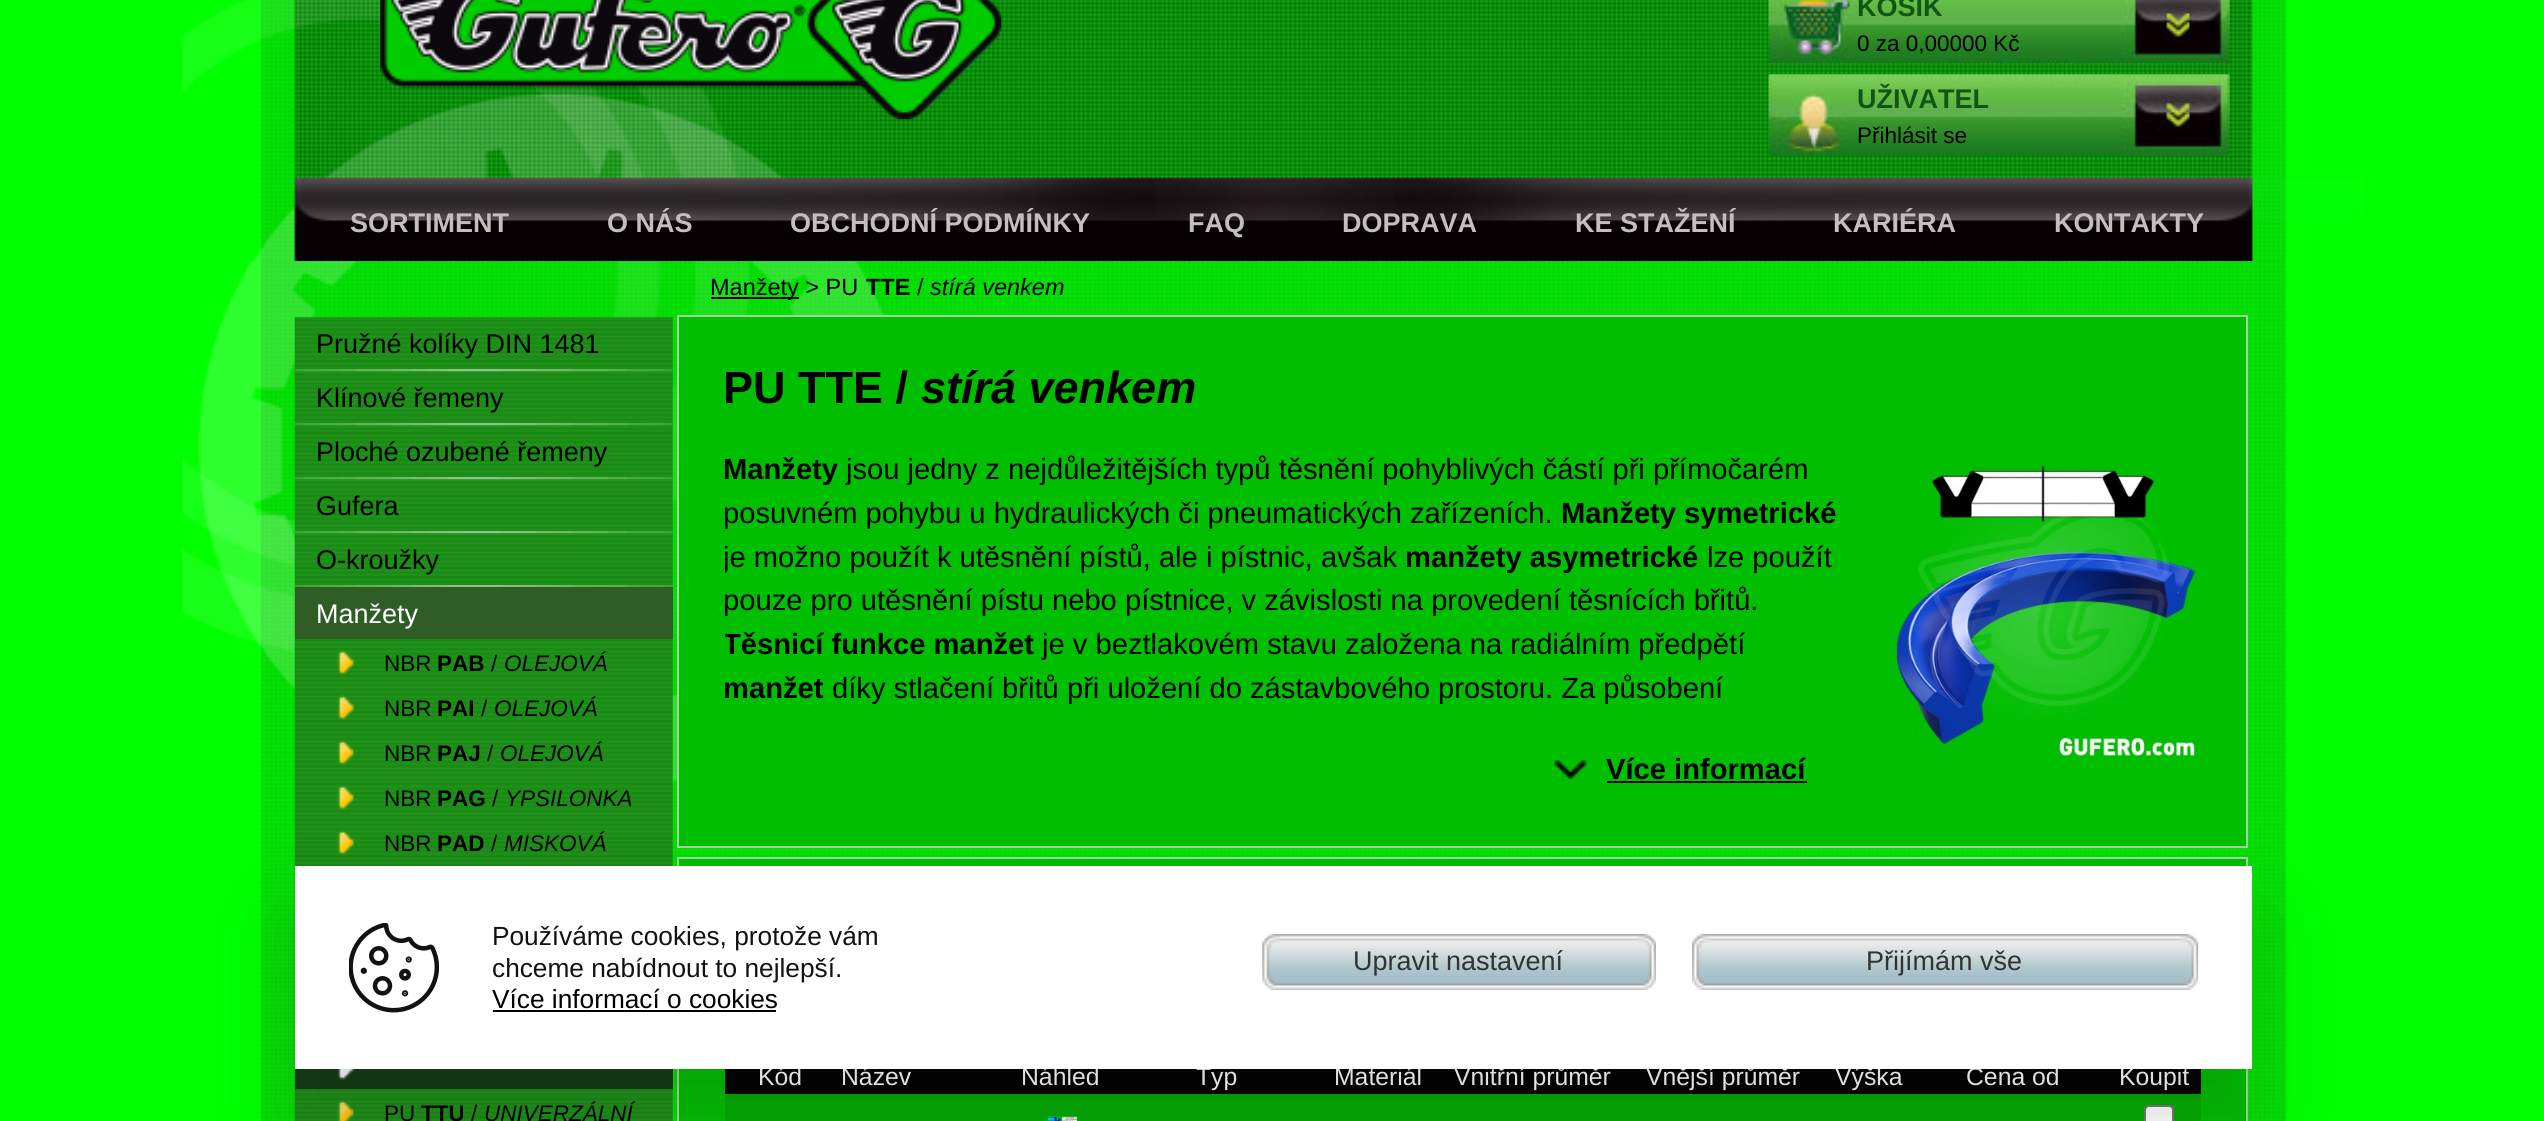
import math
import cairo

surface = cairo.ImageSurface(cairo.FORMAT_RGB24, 2544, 1121)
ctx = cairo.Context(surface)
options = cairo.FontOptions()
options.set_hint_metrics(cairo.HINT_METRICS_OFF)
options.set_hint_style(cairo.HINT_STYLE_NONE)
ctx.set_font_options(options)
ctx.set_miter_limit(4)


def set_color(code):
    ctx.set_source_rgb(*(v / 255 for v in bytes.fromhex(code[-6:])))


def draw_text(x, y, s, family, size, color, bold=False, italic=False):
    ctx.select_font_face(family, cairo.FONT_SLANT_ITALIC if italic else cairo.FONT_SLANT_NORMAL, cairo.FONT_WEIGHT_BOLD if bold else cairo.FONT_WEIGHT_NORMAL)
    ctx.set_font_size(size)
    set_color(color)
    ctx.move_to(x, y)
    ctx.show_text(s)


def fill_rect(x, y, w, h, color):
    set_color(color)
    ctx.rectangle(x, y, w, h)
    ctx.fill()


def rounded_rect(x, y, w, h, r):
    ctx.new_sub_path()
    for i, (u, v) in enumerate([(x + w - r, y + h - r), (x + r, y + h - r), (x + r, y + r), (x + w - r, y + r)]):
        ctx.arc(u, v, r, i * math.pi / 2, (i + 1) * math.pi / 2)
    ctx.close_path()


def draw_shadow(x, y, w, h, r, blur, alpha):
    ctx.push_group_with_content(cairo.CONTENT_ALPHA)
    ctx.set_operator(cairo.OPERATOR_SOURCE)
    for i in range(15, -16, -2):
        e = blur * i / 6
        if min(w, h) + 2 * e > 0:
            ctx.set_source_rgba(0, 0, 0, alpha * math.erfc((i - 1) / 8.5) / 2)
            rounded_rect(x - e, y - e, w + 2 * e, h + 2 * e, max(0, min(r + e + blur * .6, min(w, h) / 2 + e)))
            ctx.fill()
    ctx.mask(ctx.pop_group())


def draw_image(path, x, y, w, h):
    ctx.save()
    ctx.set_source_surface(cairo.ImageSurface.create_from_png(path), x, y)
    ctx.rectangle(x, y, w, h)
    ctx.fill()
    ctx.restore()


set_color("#00ff00")
ctx.paint()
draw_image("assets/img1.png", 182, 0, 2182, 261)
draw_image("assets/img2.png", 380, 0, 622, 120)
draw_image("assets/img3.png", 1768, 0, 462, 63)
draw_text(1857, 16, "KOŠÍK", "Liberation Sans", 27, "#135514", bold=True)
draw_text(1857, 51, "0 za 0,00000 Kč", "Liberation Sans", 22.5, "#000000")
draw_image("assets/img4.png", 1768, 74, 462, 82)
draw_text(1857, 108, "UŽIVATEL", "Liberation Sans", 27, "#135514", bold=True)
draw_text(1857, 143, "Přihlásit se", "Liberation Sans", 22.5, "#000000")
draw_text(350, 232, "SORTIMENT", "Liberation Sans", 27, "#c3bfc0", bold=True)
draw_text(607, 232, "O NÁS", "Liberation Sans", 27, "#c3bfc0", bold=True)
draw_text(790, 232, "OBCHODNÍ PODMÍNKY", "Liberation Sans", 27, "#c3bfc0", bold=True)
draw_text(1188, 232, "FAQ", "Liberation Sans", 27, "#c3bfc0", bold=True)
draw_text(1342, 232, "DOPRAVA", "Liberation Sans", 27, "#c3bfc0", bold=True)
draw_text(1575, 232, "KE STAŽENÍ", "Liberation Sans", 27, "#c3bfc0", bold=True)
draw_text(1833, 232, "KARIÉRA", "Liberation Sans", 27, "#c3bfc0", bold=True)
draw_text(2054, 232, "KONTAKTY", "Liberation Sans", 27, "#c3bfc0", bold=True)
draw_image("assets/img5.png", 260, 261, 2027, 860)
draw_image("assets/img6.png", 182, 261, 2101, 540)
fill_rect(711, 297, 88, 2, "#000000")
draw_text(710, 295, "Manžety > PU", "Liberation Sans", 23.5, "#000000")
draw_text(866, 295, "TTE", "Liberation Sans", 23.5, "#000000", bold=True)
draw_text(917, 295, "/", "Liberation Sans", 23.5, "#000000")
draw_text(930, 295, "stírá venkem", "Liberation Sans", 23.5, "#000000", italic=True)
draw_image("assets/img7.png", 294, 317, 379, 804)
draw_text(316, 353, "Pružné kolíky DIN 1481", "Liberation Sans", 27, "#000000")
draw_image("assets/img8.png", 294, 369, 379, 3)
draw_text(316, 407, "Klínové řemeny", "Liberation Sans", 27, "#000000")
draw_image("assets/img9.png", 294, 423, 379, 3)
draw_text(316, 461, "Ploché ozubené řemeny", "Liberation Sans", 27, "#000000")
draw_image("assets/img9.png", 294, 477, 379, 3)
draw_text(316, 515, "Gufera", "Liberation Sans", 27, "#000000")
draw_image("assets/img10.png", 294, 531, 379, 3)
draw_text(316, 569, "O-kroužky", "Liberation Sans", 27, "#000000")
draw_image("assets/img11.png", 294, 585, 379, 3)
fill_rect(295, 587, 378, 52, "#305c26")
draw_text(316, 623, "Manžety", "Liberation Sans", 27, "#ffffff")
draw_image("assets/img12.png", 337, 650, 17, 25)
draw_text(384, 671, "NBR", "Liberation Sans", 22.5, "#000000")
draw_text(437, 671, "PAB", "Liberation Sans", 22.5, "#000000", bold=True)
draw_text(491, 671, "/", "Liberation Sans", 22.5, "#000000")
draw_text(504, 671, "OLEJOVÁ", "Liberation Sans", 22.5, "#000000", italic=True)
draw_image("assets/img12.png", 337, 695, 17, 25)
draw_text(384, 716, "NBR", "Liberation Sans", 22.5, "#000000")
draw_text(437, 716, "PAI", "Liberation Sans", 22.5, "#000000", bold=True)
draw_text(481, 716, "/", "Liberation Sans", 22.5, "#000000")
draw_text(494, 716, "OLEJOVÁ", "Liberation Sans", 22.5, "#000000", italic=True)
draw_image("assets/img12.png", 337, 740, 17, 25)
draw_text(384, 761, "NBR", "Liberation Sans", 22.5, "#000000")
draw_text(437, 761, "PAJ", "Liberation Sans", 22.5, "#000000", bold=True)
draw_text(487, 761, "/", "Liberation Sans", 22.5, "#000000")
draw_text(500, 761, "OLEJOVÁ", "Liberation Sans", 22.5, "#000000", italic=True)
draw_image("assets/img12.png", 337, 785, 17, 25)
draw_text(384, 806, "NBR", "Liberation Sans", 22.5, "#000000")
draw_text(437, 806, "PAG", "Liberation Sans", 22.5, "#000000", bold=True)
draw_text(492, 806, "/", "Liberation Sans", 22.5, "#000000")
draw_text(505, 806, "YPSILONKA", "Liberation Sans", 22.5, "#000000", italic=True)
draw_image("assets/img12.png", 337, 830, 17, 25)
draw_text(384, 851, "NBR", "Liberation Sans", 22.5, "#000000")
draw_text(437, 851, "PAD", "Liberation Sans", 22.5, "#000000", bold=True)
draw_text(491, 851, "/", "Liberation Sans", 22.5, "#000000")
draw_text(504, 851, "MISKOVÁ", "Liberation Sans", 22.5, "#000000", italic=True)
fill_rect(295, 1069, 378, 20, "#113a11")
draw_image("assets/img13.png", 337, 1069, 17, 11)
draw_image("assets/img14.png", 337, 1100, 17, 21)
draw_text(384, 1121, "PU", "Liberation Sans", 22.5, "#000000")
draw_text(421, 1121, "TTU", "Liberation Sans", 22.5, "#000000", bold=True)
draw_text(471, 1121, "/", "Liberation Sans", 22.5, "#000000")
draw_text(484, 1121, "UNIVERZÁLNÍ", "Liberation Sans", 22.5, "#000000", italic=True)
set_color("#00be00")
ctx.rectangle(678, 316, 1569, 531)
ctx.fill_preserve()
set_color("#a2d39c")
ctx.stroke()
draw_text(723, 403, "PU TTE /", "Liberation Sans", 45, "#000000", bold=True)
draw_text(921, 403, "stírá venkem", "Liberation Sans", 45, "#000000", bold=True, italic=True)
draw_text(723, 479, "Manžety", "Liberation Sans", 29.15, "#000000", bold=True)
draw_text(846, 479, "jsou jedny z nejdůležitějších typů těsnění pohyblivých částí při přímočarém", "Liberation Sans", 29.15, "#000000")
draw_text(723, 523, "posuvném pohybu u hydraulických či pneumatických zařízeních.", "Liberation Sans", 29.15, "#000000")
draw_text(1561, 523, "Manžety symetrické", "Liberation Sans", 29.15, "#000000", bold=True)
ctx.save()
ctx.rectangle(725, 448, 1127, 281)
ctx.clip()
draw_text(723, 567, "je možno použít k utěsnění pístů, ale i pístnic, avšak", "Liberation Sans", 29.15, "#000000")
ctx.restore()
draw_text(1405, 567, "manžety asymetrické", "Liberation Sans", 29.15, "#000000", bold=True)
draw_text(1707, 567, "lze použít", "Liberation Sans", 29.15, "#000000")
draw_text(723, 610, "pouze pro utěsnění pístu nebo pístnice, v závislosti na provedení těsnících břitů.", "Liberation Sans", 29.15, "#000000")
ctx.save()
ctx.rectangle(725, 448, 1127, 281)
ctx.clip()
draw_text(723, 654, "Těsnicí funkce manžet", "Liberation Sans", 29.15, "#000000", bold=True)
ctx.restore()
draw_text(1042, 654, "je v beztlakovém stavu založena na radiálním předpětí", "Liberation Sans", 29.15, "#000000")
draw_text(723, 698, "manžet", "Liberation Sans", 29.15, "#000000", bold=True)
draw_text(832, 698, "díky stlačení břitů při uložení do zástavbového prostoru. Za působení", "Liberation Sans", 29.15, "#000000")
draw_image("assets/img15.png", 1885, 461, 312, 297)
draw_image("assets/img16.png", 1554, 760, 33, 20)
draw_text(1606, 779, "Více informací", "Liberation Sans", 29.15, "#000000", bold=True)
fill_rect(1607, 781, 200, 2, "#000000")
set_color("#00be00")
ctx.rectangle(678, 858, 1569, 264)
ctx.fill_preserve()
set_color("#a2d39c")
ctx.stroke()
fill_rect(725, 1069, 1476, 25, "#000000")
draw_text(758, 1085, "Kód", "Liberation Sans", 24.75, "#ffffff")
draw_text(841, 1085, "Název", "Liberation Sans", 24.75, "#ffffff")
draw_text(1021, 1085, "Náhled", "Liberation Sans", 24.75, "#ffffff")
draw_text(1196, 1085, "Typ", "Liberation Sans", 24.75, "#ffffff")
draw_text(1334, 1085, "Materiál", "Liberation Sans", 24.75, "#ffffff")
draw_text(1454, 1085, "Vnitřní průměr", "Liberation Sans", 24.75, "#ffffff")
draw_text(1646, 1085, "Vnější průměr", "Liberation Sans", 24.75, "#ffffff")
draw_text(1835, 1085, "Výška", "Liberation Sans", 24.75, "#ffffff")
draw_text(1966, 1085, "Cena od", "Liberation Sans", 24.75, "#ffffff")
draw_text(2119, 1085, "Koupit", "Liberation Sans", 24.75, "#ffffff")
fill_rect(725, 1094, 1476, 27, "#00aa00")
draw_image("assets/img17.png", 1044, 1116, 34, 5)
set_color("#ffffff")
rounded_rect(2145, 1106, 28, 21, 4)
ctx.fill_preserve()
set_color("#767676")
ctx.stroke()
set_color("#1a1a1a")
draw_shadow(295, 920, 1957, 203, 0, 45, 0.16)
fill_rect(295, 866, 1957, 203, "#ffffff")
draw_image("assets/img18.png", 349, 923, 90, 90)
draw_text(492, 945, "Používáme cookies, protože vám", "Liberation Sans", 26.25, "#121212")
draw_text(492, 977, "chceme nabídnout to nejlepší.", "Liberation Sans", 26.25, "#121212")
draw_text(492, 1008, "Více informací o cookies", "Liberation Sans", 26.25, "#000000")
fill_rect(493, 1010, 283, 2, "#000000")
draw_image("assets/img19.png", 1262, 933, 394, 57)
draw_text(1353, 970, "Upravit nastavení", "Liberation Sans", 27, "#333333")
draw_image("assets/img20.png", 1692, 933, 507, 57)
draw_text(1866, 970, "Přijímám vše", "Liberation Sans", 27, "#333333")
surface.write_to_png("output.png")
